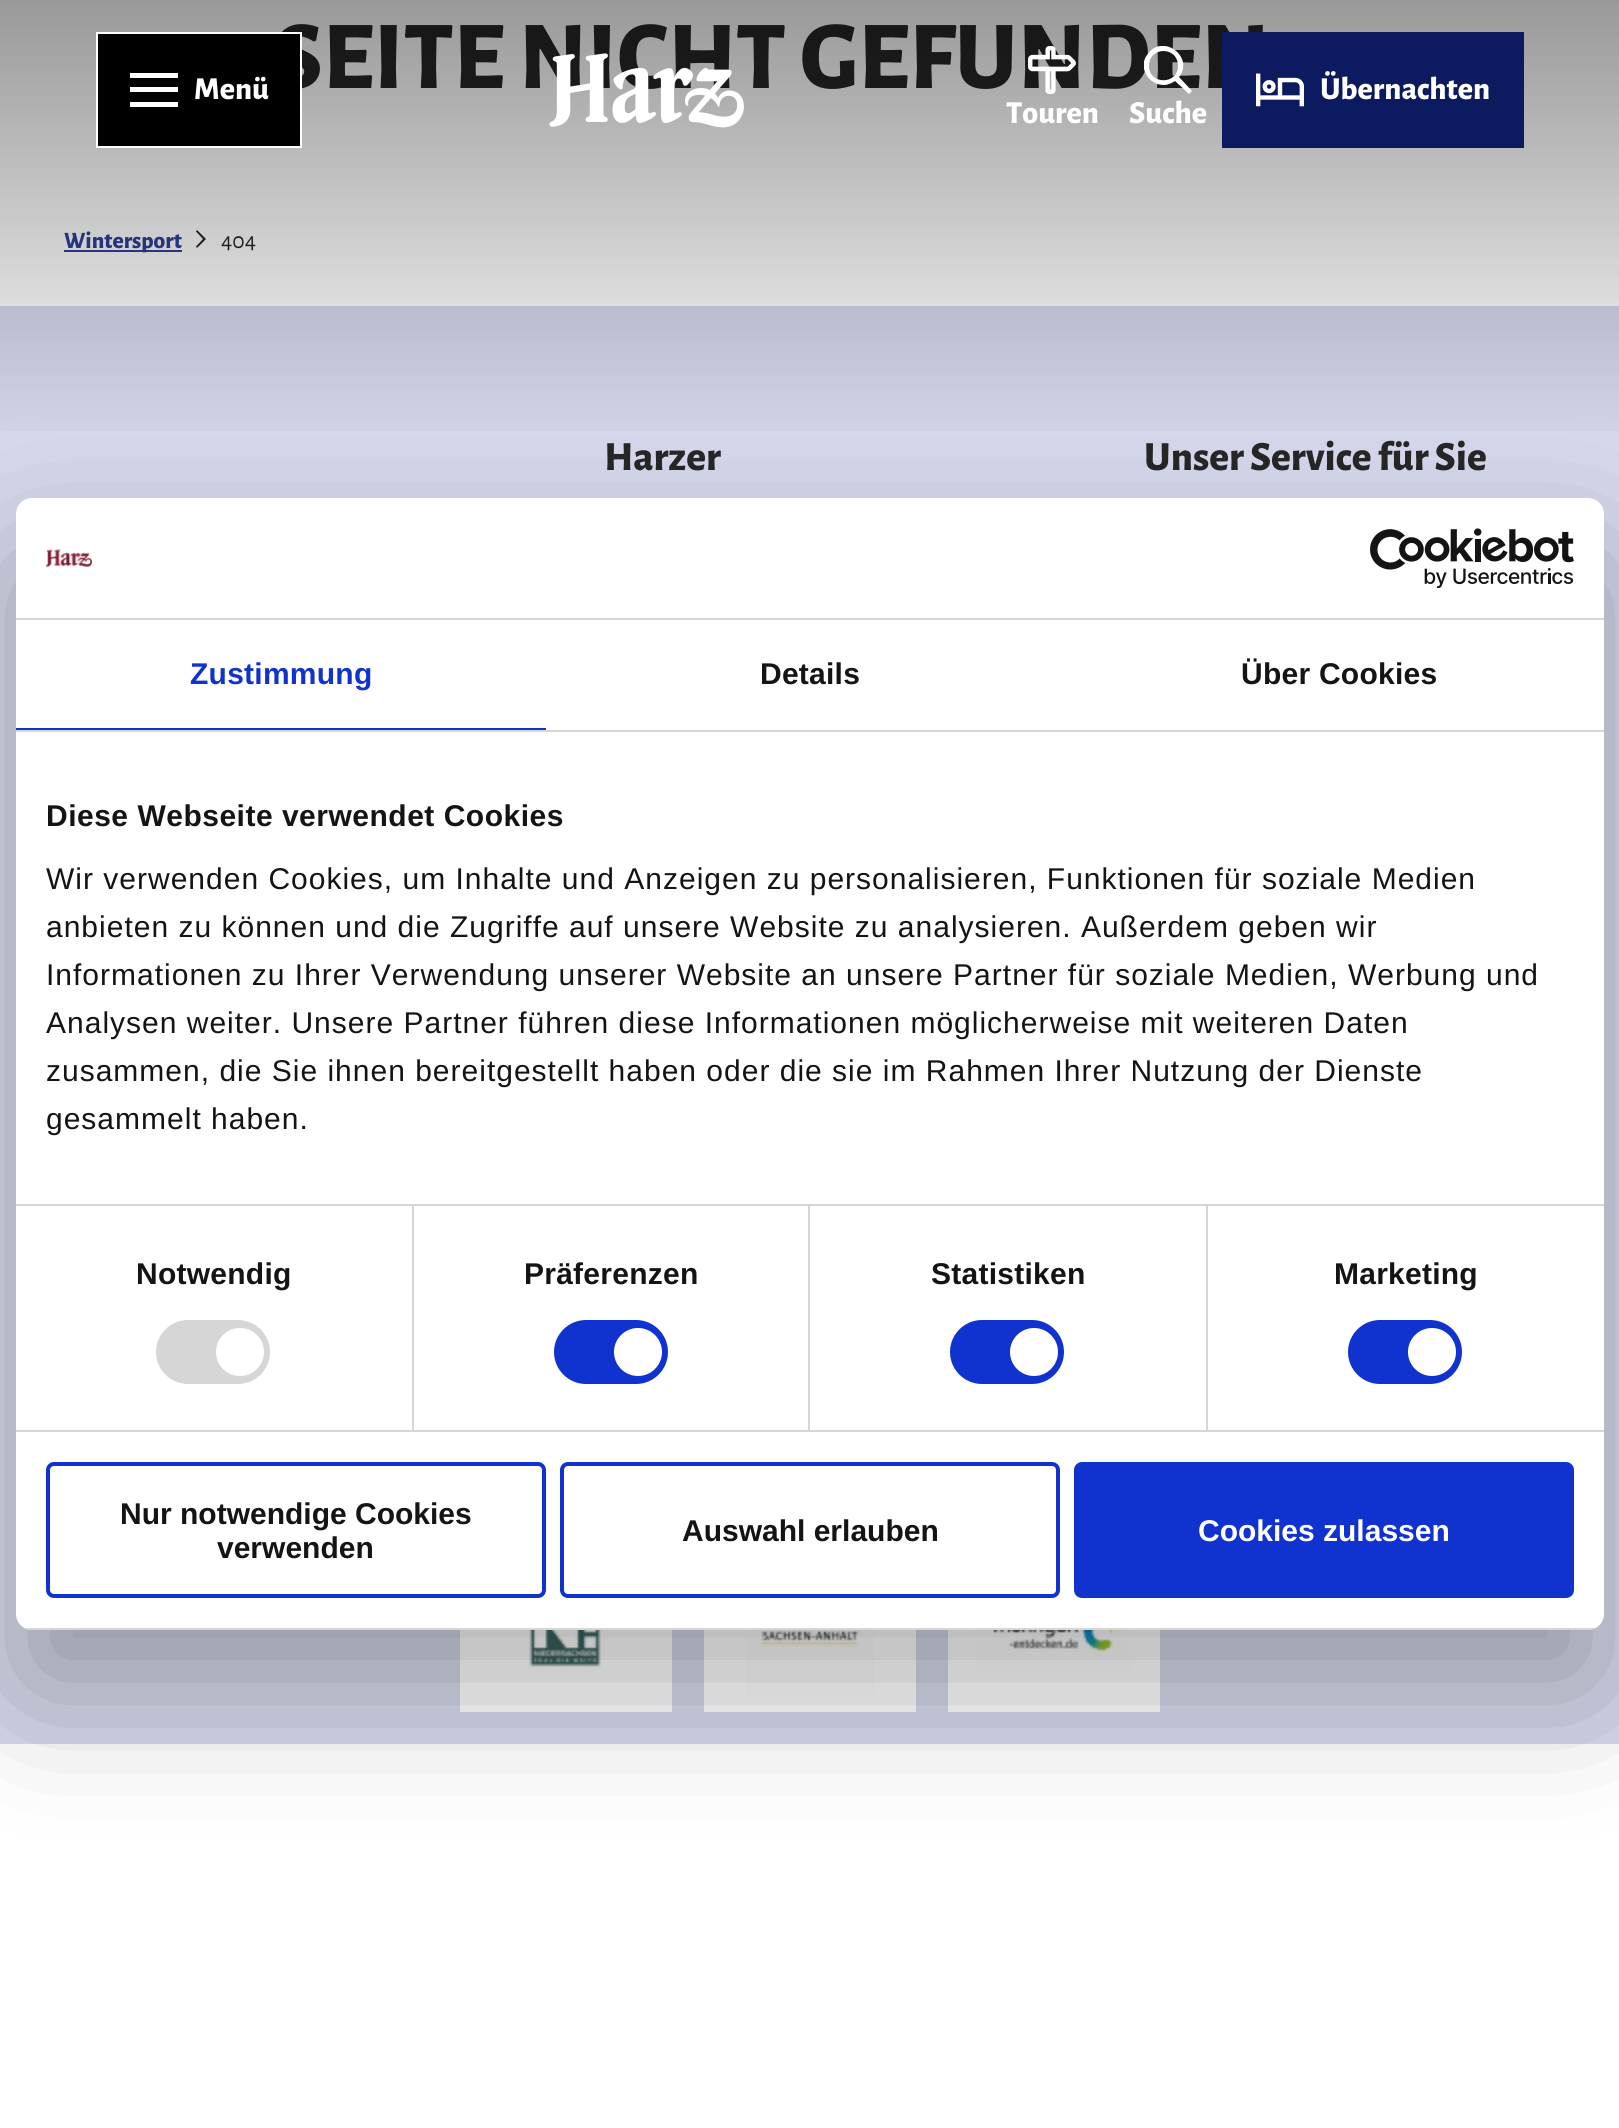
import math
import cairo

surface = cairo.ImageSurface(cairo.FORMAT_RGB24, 1619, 2128)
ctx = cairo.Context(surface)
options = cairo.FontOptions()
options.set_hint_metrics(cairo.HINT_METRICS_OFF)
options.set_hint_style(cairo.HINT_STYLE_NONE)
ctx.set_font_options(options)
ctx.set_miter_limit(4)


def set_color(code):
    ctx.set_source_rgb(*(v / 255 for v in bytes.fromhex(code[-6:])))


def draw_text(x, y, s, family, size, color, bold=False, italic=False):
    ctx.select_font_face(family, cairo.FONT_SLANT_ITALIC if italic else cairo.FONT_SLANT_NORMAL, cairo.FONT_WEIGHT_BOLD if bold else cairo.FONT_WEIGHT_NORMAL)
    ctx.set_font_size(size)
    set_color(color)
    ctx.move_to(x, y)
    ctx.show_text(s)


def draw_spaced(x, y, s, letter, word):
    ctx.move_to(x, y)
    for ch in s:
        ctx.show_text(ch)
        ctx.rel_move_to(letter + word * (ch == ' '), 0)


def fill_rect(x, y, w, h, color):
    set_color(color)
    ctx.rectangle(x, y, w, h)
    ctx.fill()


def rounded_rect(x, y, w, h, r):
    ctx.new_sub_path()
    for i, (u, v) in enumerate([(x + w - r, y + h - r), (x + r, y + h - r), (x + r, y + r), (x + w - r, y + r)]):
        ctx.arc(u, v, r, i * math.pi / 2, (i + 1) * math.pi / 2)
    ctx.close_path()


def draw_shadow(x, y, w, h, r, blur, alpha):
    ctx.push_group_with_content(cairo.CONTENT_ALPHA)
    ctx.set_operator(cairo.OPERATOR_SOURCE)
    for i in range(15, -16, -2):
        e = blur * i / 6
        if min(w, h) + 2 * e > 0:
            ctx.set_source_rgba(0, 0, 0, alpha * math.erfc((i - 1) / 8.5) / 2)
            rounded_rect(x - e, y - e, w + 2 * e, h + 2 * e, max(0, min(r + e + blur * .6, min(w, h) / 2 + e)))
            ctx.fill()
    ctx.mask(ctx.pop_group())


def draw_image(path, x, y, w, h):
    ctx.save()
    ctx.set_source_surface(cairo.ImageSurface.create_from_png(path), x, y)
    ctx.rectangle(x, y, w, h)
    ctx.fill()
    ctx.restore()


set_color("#ffffff")
ctx.paint()
draw_text(273, 88, "SEITE NICHT GEFUNDEN", "Alegreya Sans ExtraBold", 97.6, "#262626")
fill_rect(64, 250, 118, 2, "#2e4199")
draw_text(64, 248, "Wintersport", "Alegreya Sans ExtraBold", 23.5, "#2e4199")
set_color("#262626")
ctx.set_fill_rule(cairo.FILL_RULE_EVEN_ODD)
ctx.new_path()
ctx.move_to(196, 231.5)
ctx.line_to(197, 230)
ctx.line_to(206, 239)
ctx.line_to(197, 248)
ctx.line_to(196, 246.5)
ctx.line_to(203, 239)
ctx.close_path()
ctx.fill()
draw_text(221, 248, "404", "Alegreya Sans", 23.5, "#262626")
fill_rect(0, 306, 1619, 1438, "#d5d9eb")
gradient = cairo.LinearGradient(810, 0, 810, 456)
gradient.add_color_stop_rgba(0, 0, 0, 0, 0.4)
gradient.add_color_stop_rgba(1, 0, 0, 0, 0)
ctx.set_source(gradient)
ctx.rectangle(0, 0, 1619, 431)
ctx.fill()
set_color("#000000")
ctx.rectangle(97, 33, 204, 114)
ctx.fill_preserve()
set_color("#ffffff")
ctx.stroke()
ctx.new_path()
ctx.move_to(178, 78)
ctx.line_to(178, 73)
ctx.line_to(130, 73)
ctx.line_to(130, 78)
ctx.close_path()
ctx.move_to(178, 87)
ctx.line_to(178, 92)
ctx.line_to(130, 92)
ctx.line_to(130, 87)
ctx.close_path()
ctx.move_to(178, 102)
ctx.line_to(178, 107)
ctx.line_to(130, 107)
ctx.line_to(130, 102)
ctx.close_path()
ctx.fill()
draw_text(194, 99, "Menü", "Alegreya Sans ExtraBold", 32, "#ffffff")
draw_image("assets/img1.png", 549, 53, 195, 75)
fill_rect(1222, 32, 302, 116, "#0c1b5f")
draw_image("assets/img2.png", 1256, 73, 48, 34)
draw_text(1320, 99, "Übernachten", "Alegreya Sans ExtraBold", 32, "#ffffff")
draw_image("assets/img3.png", 1028, 46, 48, 48)
draw_text(1006, 123, "Touren", "Alegreya Sans ExtraBold", 32, "#ffffff")
ctx.save()
ctx.set_fill_rule(cairo.FILL_RULE_WINDING)
ctx.rectangle(1144, 46, 48, 48)
ctx.clip()
ctx.set_fill_rule(cairo.FILL_RULE_EVEN_ODD)
ctx.new_path()
ctx.move_to(1164, 85)
ctx.curve_to(1154, 85, 1146, 78, 1144, 69)
ctx.curve_to(1143, 64, 1144, 59, 1147, 55)
ctx.curve_to(1162, 32, 1195, 57, 1179, 77)
ctx.line_to(1192, 91)
ctx.line_to(1189, 94)
ctx.line_to(1175, 81)
ctx.curve_to(1172, 83, 1168, 85, 1164, 85)
ctx.move_to(1178, 66)
ctx.curve_to(1178, 85, 1149, 85, 1149, 66)
ctx.curve_to(1149, 46, 1178, 46, 1178, 66)
ctx.fill()
ctx.restore()
draw_text(1129, 123, "Suche", "Alegreya Sans ExtraBold", 32, "#ffffff")
draw_image("assets/img4.png", 460, 1630, 212, 82)
draw_image("assets/img5.png", 704, 1630, 212, 82)
draw_image("assets/img6.png", 948, 1630, 212, 82)
draw_text(604, 470, "Harzer", "Alegreya Sans ExtraBold", 41.5, "#262626")
draw_text(1144, 470, "Unser Service für Sie", "Alegreya Sans ExtraBold", 41.5, "#262626")
set_color("#000000")
draw_shadow(16, 562, 1588, 1132, 16, 68, 0.3)
set_color("#ffffff")
rounded_rect(16, 498, 1588, 1132, 16)
ctx.fill()
fill_rect(16, 618, 1588, 2, "#d6d6d6")
draw_image("assets/img7.png", 46, 549, 46, 19)
draw_image("assets/img8.png", 1370, 528, 204, 60)
fill_rect(16, 730, 1588, 2, "#d6d6d6")
fill_rect(16, 728, 530, 2, "#1032cf")
ctx.select_font_face("Liberation Sans", cairo.FONT_SLANT_NORMAL, cairo.FONT_WEIGHT_BOLD)
ctx.set_font_size(30)
draw_spaced(190, 684, "Zustimmung", 0.25, 0)
set_color("#141414")
draw_spaced(760, 684, "Details", 0.25, 0)
draw_spaced(1241, 684, "Über Cookies", 0.25, 0)
fill_rect(16, 1204, 1588, 2, "#d6d6d6")
set_color("#141414")
draw_spaced(46, 826, "Diese Webseite verwendet Cookies", 0.5, 0)
ctx.select_font_face("Liberation Sans")
draw_spaced(46, 889, "Wir verwenden Cookies, um Inhalte und Anzeigen zu personalisieren, Funktionen für soziale Medien", 1, 0)
draw_spaced(46, 937, "anbieten zu können und die Zugriffe auf unsere Website zu analysieren. Außerdem geben wir", 1, 0)
draw_spaced(46, 985, "Informationen zu Ihrer Verwendung unserer Website an unsere Partner für soziale Medien, Werbung und", 1, 0)
draw_spaced(46, 1033, "Analysen weiter. Unsere Partner führen diese Informationen möglicherweise mit weiteren Daten", 1, 0)
draw_spaced(46, 1081, "zusammen, die Sie ihnen bereitgestellt haben oder die sie im Rahmen Ihrer Nutzung der Dienste", 1, 0)
draw_spaced(46, 1129, "gesammelt haben.", 1, 0)
fill_rect(16, 1430, 1588, 2, "#d6d6d6")
fill_rect(412, 1206, 2, 224, "#d6d6d6")
ctx.select_font_face("Liberation Sans", cairo.FONT_SLANT_NORMAL, cairo.FONT_WEIGHT_BOLD)
set_color("#141414")
draw_spaced(136, 1284, "Notwendig", 0.25, 0)
set_color("#d6d6d6")
rounded_rect(156, 1320, 114, 64, 32)
ctx.fill()
set_color("#ffffff")
ctx.arc(240, 1352, 24, 0, 2 * math.pi)
ctx.fill()
fill_rect(808, 1206, 2, 224, "#d6d6d6")
set_color("#141414")
draw_spaced(524, 1284, "Präferenzen", 0.25, 0)
set_color("#1032cf")
rounded_rect(554, 1320, 114, 64, 32)
ctx.fill()
set_color("#ffffff")
ctx.arc(638, 1352, 24, 0, 2 * math.pi)
ctx.fill()
fill_rect(1206, 1206, 2, 224, "#d6d6d6")
set_color("#141414")
draw_spaced(931, 1284, "Statistiken", 0.25, 0)
set_color("#1032cf")
rounded_rect(950, 1320, 114, 64, 32)
ctx.fill()
set_color("#ffffff")
ctx.arc(1034, 1352, 24, 0, 2 * math.pi)
ctx.fill()
set_color("#141414")
draw_spaced(1334, 1284, "Marketing", 0.25, 0)
set_color("#1032cf")
rounded_rect(1348, 1320, 114, 64, 32)
ctx.fill()
set_color("#ffffff")
ctx.arc(1432, 1352, 24, 0, 2 * math.pi)
ctx.fill()
ctx.save()
ctx.set_fill_rule(cairo.FILL_RULE_WINDING)
rounded_rect(16, 498, 1588, 1132, 16)
ctx.clip()
fill_rect(16, 1628, 1588, 2, "#d6d6d6")
ctx.restore()
rounded_rect(48, 1464, 496, 132, 6)
set_color("#1032cf")
ctx.set_line_width(4)
ctx.stroke()
draw_text(120, 1524, "Nur notwendige Cookies", "Liberation Sans", 30, "#141414", bold=True)
draw_text(217, 1558, "verwenden", "Liberation Sans", 30, "#141414", bold=True)
rounded_rect(562, 1464, 496, 132, 6)
set_color("#1032cf")
ctx.stroke()
draw_text(682, 1541, "Auswahl erlauben", "Liberation Sans", 30, "#141414", bold=True)
set_color("#1032cf")
rounded_rect(1076, 1464, 496, 132, 6)
ctx.fill_preserve()
ctx.stroke()
draw_text(1198, 1541, "Cookies zulassen", "Liberation Sans", 30, "#ffffff", bold=True)
surface.write_to_png("output.png")
